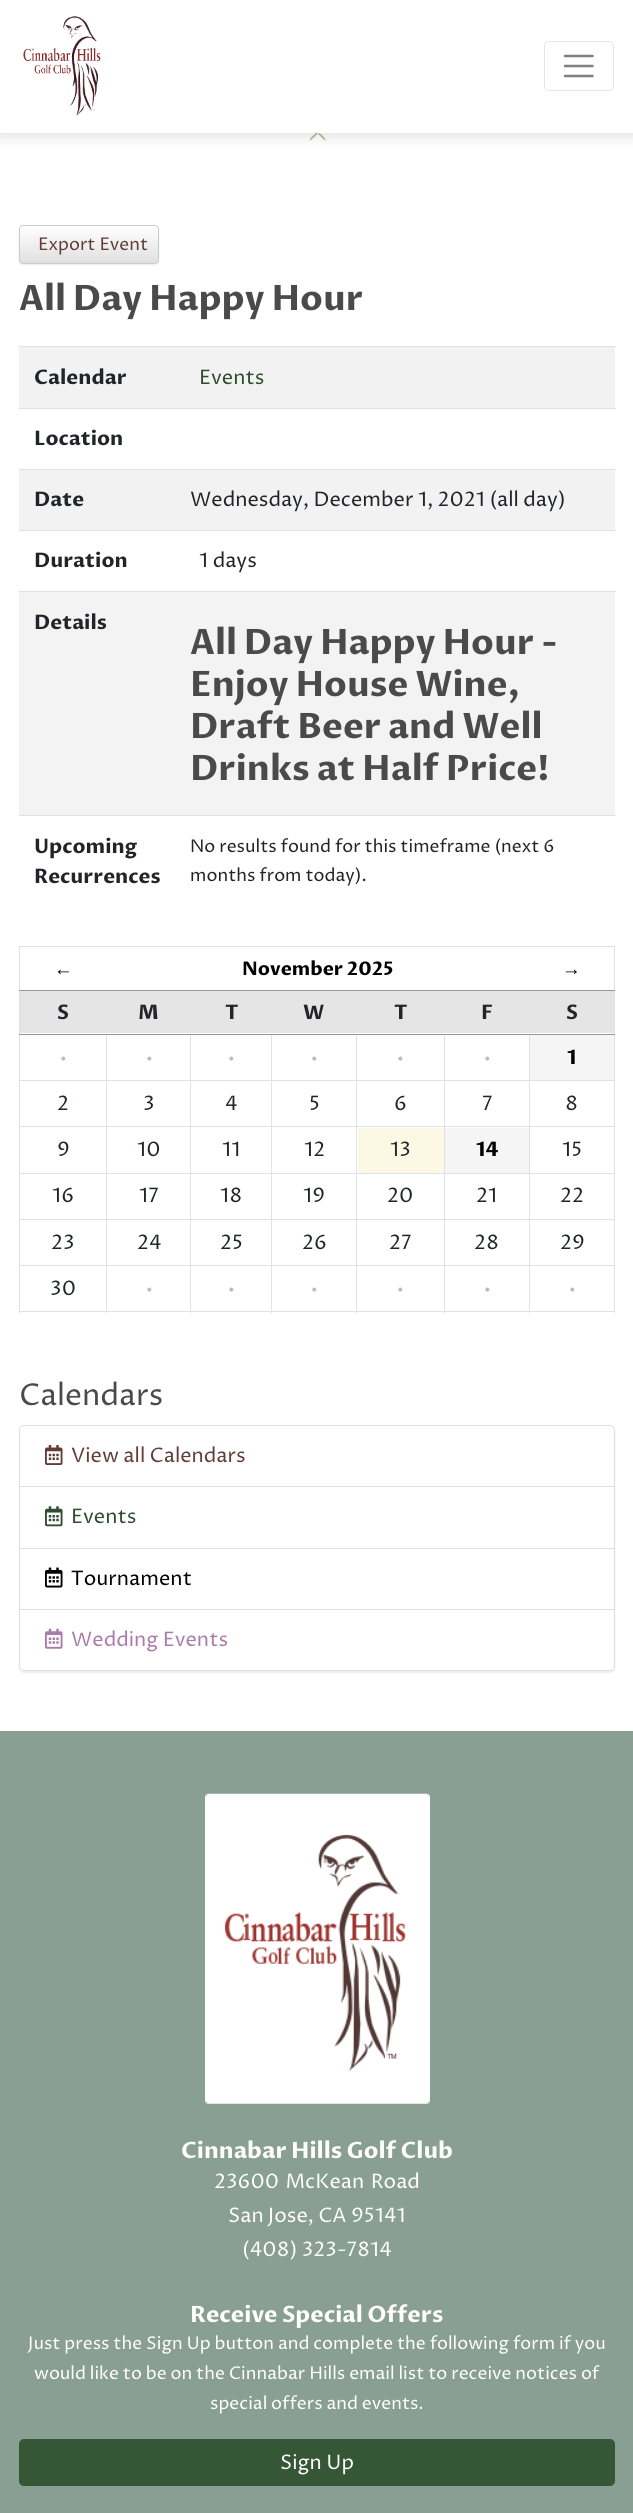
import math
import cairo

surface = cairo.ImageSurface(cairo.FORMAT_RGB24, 633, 2513)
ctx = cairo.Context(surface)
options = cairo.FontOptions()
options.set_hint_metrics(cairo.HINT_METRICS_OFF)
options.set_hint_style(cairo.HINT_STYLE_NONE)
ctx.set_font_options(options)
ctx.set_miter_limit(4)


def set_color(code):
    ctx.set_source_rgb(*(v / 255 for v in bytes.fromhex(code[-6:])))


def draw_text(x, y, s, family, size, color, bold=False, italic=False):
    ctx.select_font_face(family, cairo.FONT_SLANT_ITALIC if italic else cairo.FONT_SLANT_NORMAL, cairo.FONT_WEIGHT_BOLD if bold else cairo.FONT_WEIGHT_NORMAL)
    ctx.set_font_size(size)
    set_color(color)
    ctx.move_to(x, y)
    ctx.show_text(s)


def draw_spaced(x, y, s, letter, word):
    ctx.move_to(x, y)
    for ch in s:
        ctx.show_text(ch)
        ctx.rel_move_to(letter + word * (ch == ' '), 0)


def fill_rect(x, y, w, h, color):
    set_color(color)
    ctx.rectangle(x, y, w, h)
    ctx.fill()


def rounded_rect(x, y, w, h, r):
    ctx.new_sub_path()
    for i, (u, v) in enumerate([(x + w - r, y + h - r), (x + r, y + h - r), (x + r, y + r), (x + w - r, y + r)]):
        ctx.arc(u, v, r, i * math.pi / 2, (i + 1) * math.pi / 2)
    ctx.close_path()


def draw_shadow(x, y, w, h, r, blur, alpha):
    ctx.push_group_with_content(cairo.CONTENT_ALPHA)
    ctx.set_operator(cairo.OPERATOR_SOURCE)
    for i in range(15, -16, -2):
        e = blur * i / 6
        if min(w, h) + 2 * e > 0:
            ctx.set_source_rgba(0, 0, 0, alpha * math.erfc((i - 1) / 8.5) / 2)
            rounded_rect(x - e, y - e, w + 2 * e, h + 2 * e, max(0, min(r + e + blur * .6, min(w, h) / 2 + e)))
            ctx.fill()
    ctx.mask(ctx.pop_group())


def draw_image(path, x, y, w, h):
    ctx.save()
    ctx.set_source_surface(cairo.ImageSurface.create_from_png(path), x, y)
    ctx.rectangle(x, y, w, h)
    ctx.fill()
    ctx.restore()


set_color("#ffffff")
ctx.paint()
draw_image("assets/img2.png", 309, 133, 17, 8)
set_color("#000000")
draw_shadow(-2, 0, 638, 138, 0, 6, 0.1)
fill_rect(0, 0, 633, 133, "#ffffff")
draw_image("assets/img1.png", 23, 16, 78, 100)
rounded_rect(544.5, 41.5, 69, 49, 4.5)
set_color("#e6e6e6")
ctx.set_line_width(1)
ctx.stroke()
ctx.new_path()
ctx.move_to(565, 56)
ctx.line_to(592.5, 56)
ctx.move_to(565, 66)
ctx.line_to(592.5, 66)
ctx.move_to(565, 76)
ctx.line_to(592.5, 76)
set_color("#808080")
ctx.set_line_width(2.5)
ctx.set_line_cap(cairo.LINE_CAP_ROUND)
ctx.stroke()
set_color("#000000")
draw_shadow(19, 226, 140, 39, 4, 0.5, 0.07)
ctx.save()
rounded_rect(19, 225, 140, 39, 4)
ctx.clip()
gradient = cairo.LinearGradient(89, 226, 89, 263)
gradient.add_color_stop_rgba(0, 1, 1, 1, 1)
gradient.add_color_stop_rgba(1, 0.878, 0.878, 0.878, 1)
ctx.set_source(gradient)
ctx.rectangle(19, 226, 140, 37)
ctx.fill()
ctx.restore()
rounded_rect(19.5, 225.5, 139, 38, 3.5)
set_color("#cccccc")
ctx.set_line_width(1)
ctx.set_line_cap(cairo.LINE_CAP_BUTT)
ctx.stroke()
draw_text(38, 250, "Export Event", "Proza Libre", 17.5, "#623d39")
draw_text(19, 310, "All Day Happy Hour", "Proza Libre", 35, "#4a4a4a", bold=True)
fill_rect(19, 347, 596, 61, "#f2f2f2")
draw_text(34, 384, "Calendar", "Proza Libre", 20, "#212529", bold=True)
fill_rect(19, 346, 597, 1, "#dee2e6")
draw_text(199, 384, "Events", "Proza Libre", 20, "#2f4d2f")
fill_rect(19, 408, 597, 1, "#dee2e6")
draw_text(34, 445, "Location", "Proza Libre", 20, "#212529", bold=True)
fill_rect(19, 470, 596, 60, "#f2f2f2")
draw_text(34, 506, "Date", "Proza Libre", 20, "#212529", bold=True)
fill_rect(19, 469, 597, 1, "#dee2e6")
draw_text(190, 506, "Wednesday, December 1, 2021 (all day)", "Proza Libre", 20, "#212529")
draw_text(34, 567, "Duration", "Proza Libre", 20, "#212529", bold=True)
fill_rect(19, 530, 597, 1, "#dee2e6")
draw_text(199, 567, "1 days", "Proza Libre", 20, "#212529")
fill_rect(19, 592, 596, 223, "#f3f3f3")
draw_text(34, 629, "Details", "Proza Libre", 20, "#212529", bold=True)
fill_rect(19, 591, 597, 1, "#dee2e6")
draw_text(190, 654, "All Day Happy Hour -", "Proza Libre", 35, "#4a4a4a", bold=True)
draw_text(190, 696, "Enjoy House Wine,", "Proza Libre", 35, "#4a4a4a", bold=True)
draw_text(190, 738, "Draft Beer and Well", "Proza Libre", 35, "#4a4a4a", bold=True)
draw_text(190, 780, "Drinks at Half Price!", "Proza Libre", 35, "#4a4a4a", bold=True)
draw_text(34, 853, "Upcoming", "Proza Libre", 20, "#212529", bold=True)
draw_text(34, 883, "Recurrences", "Proza Libre", 20, "#212529", bold=True)
fill_rect(19, 815, 597, 1, "#dee2e6")
draw_text(190, 852, "No results found for this timeframe (next 6", "Proza Libre", 17.5, "#212529")
draw_text(190, 881, "months from today).", "Proza Libre", 17.5, "#212529")
fill_rect(19, 946, 596, 1, "#dee2e6")
fill_rect(614, 946, 1, 367, "#dee2e6")
fill_rect(19, 1311, 596, 1, "#dee2e6")
fill_rect(19, 946, 1, 367, "#dee2e6")
draw_text(54, 975, "←", "Liberation Sans", 18.75, "#000000", bold=True)
draw_text(242, 975, "November 2025", "Proza Libre", 18.75, "#000000", bold=True)
draw_text(562, 975, "→", "Liberation Sans", 18.75, "#000000", bold=True)
fill_rect(20, 991, 594, 42, "#e5e5e5")
draw_text(57, 1019, "S", "Proza Libre", 20, "#212529", bold=True)
draw_text(138, 1019, "M", "Proza Libre", 20, "#212529", bold=True)
draw_text(225, 1019, "T", "Proza Libre", 20, "#212529", bold=True)
draw_text(303, 1019, "W", "Proza Libre", 20, "#212529", bold=True)
draw_text(394, 1019, "T", "Proza Libre", 20, "#212529", bold=True)
draw_text(481, 1019, "F", "Proza Libre", 20, "#212529", bold=True)
fill_rect(19, 990, 596, 1, "#979797")
fill_rect(529, 1080, 86, 1, "#dee2e6")
fill_rect(529, 1126, 86, 1, "#dee2e6")
fill_rect(529, 1173, 86, 1, "#dee2e6")
fill_rect(529, 1219, 86, 1, "#dee2e6")
fill_rect(529, 1265, 86, 1, "#dee2e6")
fill_rect(529, 1265, 1, 48, "#dee2e6")
fill_rect(444, 1265, 86, 1, "#dee2e6")
fill_rect(529, 1219, 1, 47, "#dee2e6")
fill_rect(444, 1219, 86, 1, "#dee2e6")
fill_rect(529, 1173, 1, 47, "#dee2e6")
fill_rect(444, 1173, 86, 1, "#dee2e6")
fill_rect(529, 1126, 1, 48, "#dee2e6")
fill_rect(444, 1126, 86, 1, "#dee2e6")
fill_rect(529, 1080, 1, 48, "#dee2e6")
fill_rect(444, 1080, 86, 1, "#dee2e6")
fill_rect(444, 1265, 1, 48, "#dee2e6")
fill_rect(356, 1265, 89, 1, "#dee2e6")
fill_rect(444, 1219, 1, 47, "#dee2e6")
fill_rect(356, 1219, 89, 1, "#dee2e6")
fill_rect(444, 1173, 1, 47, "#dee2e6")
fill_rect(356, 1173, 89, 1, "#dee2e6")
fill_rect(444, 1126, 1, 48, "#dee2e6")
fill_rect(356, 1126, 89, 1, "#dee2e6")
fill_rect(444, 1080, 1, 48, "#dee2e6")
fill_rect(356, 1080, 89, 1, "#dee2e6")
fill_rect(356, 1265, 1, 48, "#dee2e6")
fill_rect(271, 1265, 87, 1, "#dee2e6")
fill_rect(356, 1219, 1, 47, "#dee2e6")
fill_rect(271, 1219, 87, 1, "#dee2e6")
fill_rect(356, 1173, 1, 47, "#dee2e6")
fill_rect(271, 1173, 87, 1, "#dee2e6")
fill_rect(356, 1126, 1, 48, "#dee2e6")
fill_rect(271, 1126, 87, 1, "#dee2e6")
fill_rect(356, 1080, 1, 48, "#dee2e6")
fill_rect(271, 1080, 87, 1, "#dee2e6")
fill_rect(271, 1265, 1, 48, "#dee2e6")
fill_rect(190, 1265, 83, 1, "#dee2e6")
fill_rect(271, 1219, 1, 47, "#dee2e6")
fill_rect(190, 1219, 83, 1, "#dee2e6")
fill_rect(271, 1173, 1, 47, "#dee2e6")
fill_rect(190, 1173, 83, 1, "#dee2e6")
fill_rect(271, 1126, 1, 48, "#dee2e6")
fill_rect(190, 1126, 83, 1, "#dee2e6")
fill_rect(271, 1080, 1, 48, "#dee2e6")
fill_rect(190, 1080, 83, 1, "#dee2e6")
fill_rect(190, 1265, 1, 48, "#dee2e6")
fill_rect(106, 1265, 85, 1, "#dee2e6")
fill_rect(190, 1219, 1, 47, "#dee2e6")
fill_rect(106, 1219, 85, 1, "#dee2e6")
fill_rect(190, 1173, 1, 47, "#dee2e6")
fill_rect(106, 1173, 85, 1, "#dee2e6")
fill_rect(190, 1126, 1, 48, "#dee2e6")
fill_rect(106, 1126, 85, 1, "#dee2e6")
fill_rect(190, 1080, 1, 48, "#dee2e6")
fill_rect(106, 1080, 85, 1, "#dee2e6")
fill_rect(106, 1265, 1, 48, "#dee2e6")
fill_rect(19, 1265, 89, 1, "#dee2e6")
fill_rect(106, 1219, 1, 47, "#dee2e6")
fill_rect(19, 1219, 89, 1, "#dee2e6")
fill_rect(106, 1173, 1, 47, "#dee2e6")
fill_rect(19, 1173, 89, 1, "#dee2e6")
fill_rect(106, 1126, 1, 48, "#dee2e6")
fill_rect(19, 1126, 89, 1, "#dee2e6")
fill_rect(106, 1080, 1, 48, "#dee2e6")
fill_rect(19, 1080, 89, 1, "#dee2e6")
fill_rect(106, 1034, 1, 47, "#dee2e6")
fill_rect(190, 1034, 1, 47, "#dee2e6")
fill_rect(271, 1034, 1, 47, "#dee2e6")
fill_rect(356, 1034, 1, 47, "#dee2e6")
fill_rect(444, 1034, 1, 47, "#dee2e6")
fill_rect(529, 1034, 1, 47, "#dee2e6")
fill_rect(19, 1034, 596, 1, "#979797")
draw_text(566, 1019, "S", "Proza Libre", 20, "#212529", bold=True)
draw_text(60, 1064, "·", "Proza Libre", 20, "#bcbcbc", bold=True)
draw_text(146, 1064, "·", "Proza Libre", 20, "#bcbcbc", bold=True)
draw_text(228, 1064, "·", "Proza Libre", 20, "#bcbcbc", bold=True)
draw_text(311, 1064, "·", "Proza Libre", 20, "#bcbcbc", bold=True)
draw_text(397, 1064, "·", "Proza Libre", 20, "#bcbcbc", bold=True)
draw_text(484, 1064, "·", "Proza Libre", 20, "#bcbcbc", bold=True)
fill_rect(530, 1035, 84, 45, "#f5f5f5")
draw_text(567, 1064, "1", "Proza Libre", 20, "#000000", bold=True)
draw_text(57, 1110, "2", "Proza Libre", 20, "#212529")
draw_text(143, 1110, "3", "Proza Libre", 20, "#212529")
draw_text(225, 1110, "4", "Proza Libre", 20, "#212529")
draw_text(309, 1110, "5", "Proza Libre", 20, "#212529")
draw_text(394, 1110, "6", "Proza Libre", 20, "#212529")
draw_text(482, 1110, "7", "Proza Libre", 20, "#212529")
draw_text(565, 1110, "8", "Proza Libre", 20, "#212529")
draw_text(57, 1156, "9", "Proza Libre", 20, "#212529")
draw_text(137, 1156, "10", "Proza Libre", 20, "#212529")
draw_text(222, 1156, "11", "Proza Libre", 20, "#212529")
draw_text(304, 1156, "12", "Proza Libre", 20, "#212529")
fill_rect(358, 1128, 86, 45, "#fcf8e4")
draw_text(390, 1156, "13", "Proza Libre", 20, "#212529")
fill_rect(445, 1128, 84, 45, "#f5f5f5")
draw_text(476, 1156, "14", "Proza Libre", 20, "#000000", bold=True)
draw_text(562, 1156, "15", "Proza Libre", 20, "#212529")
draw_text(52, 1202, "16", "Proza Libre", 20, "#212529")
draw_text(139, 1202, "17", "Proza Libre", 20, "#212529")
draw_text(220, 1202, "18", "Proza Libre", 20, "#212529")
draw_text(303, 1202, "19", "Proza Libre", 20, "#212529")
draw_text(387, 1202, "20", "Proza Libre", 20, "#212529")
draw_text(476, 1202, "21", "Proza Libre", 20, "#212529")
draw_text(560, 1202, "22", "Proza Libre", 20, "#212529")
draw_text(51, 1249, "23", "Proza Libre", 20, "#212529")
draw_text(137, 1249, "24", "Proza Libre", 20, "#212529")
draw_text(220, 1249, "25", "Proza Libre", 20, "#212529")
draw_text(302, 1249, "26", "Proza Libre", 20, "#212529")
draw_text(389, 1249, "27", "Proza Libre", 20, "#212529")
draw_text(474, 1249, "28", "Proza Libre", 20, "#212529")
draw_text(560, 1249, "29", "Proza Libre", 20, "#212529")
draw_text(50, 1295, "30", "Proza Libre", 20, "#212529")
draw_text(146, 1295, "·", "Proza Libre", 20, "#bcbcbc", bold=True)
draw_text(228, 1295, "·", "Proza Libre", 20, "#bcbcbc", bold=True)
draw_text(311, 1295, "·", "Proza Libre", 20, "#bcbcbc", bold=True)
draw_text(397, 1295, "·", "Proza Libre", 20, "#bcbcbc", bold=True)
draw_text(484, 1295, "·", "Proza Libre", 20, "#bcbcbc", bold=True)
draw_text(569, 1295, "·", "Proza Libre", 20, "#bcbcbc", bold=True)
draw_text(19, 1405, "Calendars", "Proza Libre", 30, "#4a4a4a")
ctx.save()
ctx.set_fill_rule(cairo.FILL_RULE_EVEN_ODD)
ctx.new_path()
ctx.move_to(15, 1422)
ctx.line_to(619, 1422)
ctx.line_to(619, 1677)
ctx.line_to(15, 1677)
ctx.close_path()
ctx.move_to(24, 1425)
ctx.line_to(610, 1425)
ctx.curve_to(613, 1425, 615, 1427, 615, 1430)
ctx.line_to(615, 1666)
ctx.curve_to(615, 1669, 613, 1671, 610, 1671)
ctx.line_to(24, 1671)
ctx.curve_to(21, 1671, 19, 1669, 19, 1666)
ctx.line_to(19, 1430)
ctx.curve_to(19, 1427, 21, 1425, 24, 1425)
ctx.close_path()
ctx.clip()
set_color("#000000")
draw_shadow(19, 1426, 596, 247, 5, 1, 0.07)
ctx.restore()
ctx.new_path()
ctx.move_to(24, 1425.5)
ctx.line_to(610, 1425.5)
ctx.curve_to(612.5, 1425.5, 614.5, 1427.5, 614.5, 1430)
ctx.line_to(614.5, 1487.5)
ctx.line_to(19.5, 1487.5)
ctx.line_to(19.5, 1430)
ctx.curve_to(19.5, 1427.5, 21.5, 1425.5, 24, 1425.5)
ctx.close_path()
set_color("#dfdfdf")
ctx.stroke()
draw_image("assets/img3.png", 45, 1445, 18, 20)
draw_text(71, 1462, "View all Calendars", "Proza Libre", 20, "#623d39")
fill_rect(20, 1487, 594, 1, "#ffffff")
ctx.rectangle(19.5, 1486.5, 595, 62)
set_color("#dfdfdf")
ctx.stroke()
draw_image("assets/img4.png", 45, 1506, 18, 21)
draw_text(71, 1523, "Events", "Proza Libre", 20, "#2f4d2f")
ctx.rectangle(19.5, 1548.5, 595, 61)
set_color("#dfdfdf")
ctx.stroke()
draw_image("assets/img5.png", 45, 1567, 18, 21)
draw_text(71, 1585, "Tournament", "Proza Libre", 20, "#000000")
set_color("#ffffff")
ctx.new_path()
ctx.move_to(19.5, 1609.5)
ctx.line_to(614.5, 1609.5)
ctx.line_to(614.5, 1666)
ctx.curve_to(614.5, 1668.5, 612.5, 1670.5, 610, 1670.5)
ctx.line_to(24, 1670.5)
ctx.curve_to(21.5, 1670.5, 19.5, 1668.5, 19.5, 1666)
ctx.close_path()
ctx.fill_preserve()
set_color("#dfdfdf")
ctx.stroke()
draw_image("assets/img6.png", 45, 1628, 18, 21)
draw_text(71, 1646, "Wedding Events", "Proza Libre", 20, "#aa7caa")
fill_rect(0, 1731, 633, 782, "#8a9f94")
draw_image("assets/img7.png", 205, 1793, 225, 311)
draw_text(181, 2158, "Cinnabar Hills Golf Club", "Proza Libre", 22.5, "#ffffff", bold=True)
ctx.select_font_face("Proza Libre")
ctx.set_font_size(20)
draw_spaced(214, 2188, "23600 McKean Road", 0, 2)
draw_text(228, 2222, "San Jose, CA 95141", "Proza Libre", 20, "#ffffff")
draw_text(242, 2256, "(408) 323-7814", "Proza Libre", 20, "#ffffff")
draw_text(190, 2322, "Receive Special Offers", "Proza Libre", 22.5, "#ffffff", bold=True)
draw_text(28, 2349, "Just press the Sign Up button and complete the following form if you", "Proza Libre", 17.5, "#ffffff")
draw_text(34, 2379, "would like to be on the Cinnabar Hills email list to receive notices of", "Proza Libre", 17.5, "#ffffff")
draw_text(210, 2409, "special offers and events.", "Proza Libre", 17.5, "#ffffff")
set_color("#365736")
rounded_rect(19.5, 2439.5, 595, 46, 4.5)
ctx.fill_preserve()
ctx.stroke()
draw_text(280, 2469, "Sign Up", "Proza Libre", 20, "#ffffff")
surface.write_to_png("output.png")
